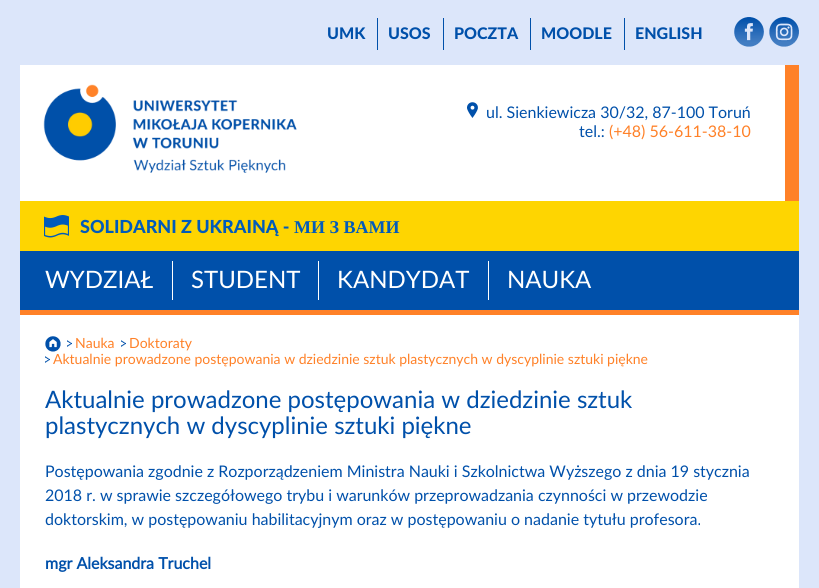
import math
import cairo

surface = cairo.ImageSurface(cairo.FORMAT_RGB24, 819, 588)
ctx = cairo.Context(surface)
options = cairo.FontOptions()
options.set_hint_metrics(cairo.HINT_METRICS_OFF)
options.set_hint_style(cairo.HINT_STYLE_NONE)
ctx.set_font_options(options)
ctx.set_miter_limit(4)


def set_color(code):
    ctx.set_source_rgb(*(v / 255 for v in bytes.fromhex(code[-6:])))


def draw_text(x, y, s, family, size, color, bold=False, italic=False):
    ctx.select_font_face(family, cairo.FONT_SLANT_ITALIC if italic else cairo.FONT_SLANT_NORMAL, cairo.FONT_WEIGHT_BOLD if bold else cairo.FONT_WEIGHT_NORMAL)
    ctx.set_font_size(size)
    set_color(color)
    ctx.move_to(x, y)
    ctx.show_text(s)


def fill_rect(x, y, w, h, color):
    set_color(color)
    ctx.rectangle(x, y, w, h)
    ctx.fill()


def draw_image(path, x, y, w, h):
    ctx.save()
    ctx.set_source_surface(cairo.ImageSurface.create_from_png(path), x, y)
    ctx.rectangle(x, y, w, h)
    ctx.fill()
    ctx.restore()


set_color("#dce6fa")
ctx.paint()
draw_text(327, 39, "UMK", "Lato Black", 16, "#0050aa")
fill_rect(377, 18, 1, 32, "#0050aa")
draw_text(388, 39, "USOS", "Lato Black", 16, "#0050aa")
fill_rect(443, 18, 1, 32, "#0050aa")
draw_text(454, 39, "POCZTA", "Lato Black", 16, "#0050aa")
fill_rect(530, 18, 1, 32, "#0050aa")
draw_text(541, 39, "MOODLE", "Lato Black", 16, "#0050aa")
fill_rect(624, 18, 1, 32, "#0050aa")
draw_text(635, 39, "ENGLISH", "Lato Black", 16, "#0050aa")
draw_image("assets/img1.png", 734, 17, 30, 30)
draw_image("assets/img2.png", 769, 17, 30, 30)
fill_rect(20, 65, 765, 136, "#ffffff")
fill_rect(785, 65, 14, 136, "#ff8128")
draw_image("assets/img3.png", 43, 84, 254, 89)
draw_image("assets/img4.png", 467, 102, 11, 16)
draw_text(486, 118, "ul. Sienkiewicza 30/32, 87-100 Toruń", "Lato", 16, "#0050aa")
draw_text(579, 137, "tel.:", "Lato", 16, "#0050aa")
draw_text(609, 137, "(+48) 56-611-38-10", "Lato", 16, "#ff8128")
fill_rect(20, 201, 779, 50, "#fed501")
draw_image("assets/img5.png", 44, 215, 25, 23)
draw_text(80, 233, "SOLIDARNI Z UKRAINĄ -", "Lato Black", 18, "#015bbb")
draw_text(294, 233, "МИ З ВАМИ", "Liberation Serif", 18, "#015bbb", bold=True)
fill_rect(20, 251, 779, 59, "#0050aa")
draw_text(45, 288, "WYDZIAŁ", "Lato", 24, "#ffffff")
fill_rect(172, 261, 1, 39, "#ffffff")
draw_text(191, 288, "STUDENT", "Lato", 24, "#ffffff")
fill_rect(318, 261, 1, 39, "#ffffff")
draw_text(337, 288, "KANDYDAT", "Lato", 24, "#ffffff")
fill_rect(488, 261, 1, 39, "#ffffff")
draw_text(507, 288, "NAUKA", "Lato", 24, "#ffffff")
fill_rect(20, 315, 779, 273, "#ffffff")
fill_rect(20, 310, 779, 5, "#ff8128")
draw_image("assets/img6.png", 45, 336, 16, 16)
draw_image("assets/img7.png", 67, 340, 5, 7)
draw_text(75, 348, "Nauka", "Lato", 14, "#ff8128")
draw_image("assets/img7.png", 121, 340, 5, 7)
draw_text(129, 348, "Doktoraty", "Lato", 14, "#ff8128")
draw_image("assets/img7.png", 45, 356, 5, 7)
draw_text(53, 364, "Aktualnie prowadzone postępowania w dziedzinie sztuk plastycznych w dyscyplinie sztuki piękne", "Lato", 14, "#ff8128")
draw_text(45, 408, "Aktualnie prowadzone postępowania w dziedzinie sztuk", "Lato", 24, "#0050aa")
draw_text(45, 434, "plastycznych w dyscyplinie sztuki piękne", "Lato", 24, "#0050aa")
draw_text(45, 477, "Postępowania zgodnie z Rozporządzeniem Ministra Nauki i Szkolnictwa Wyższego z dnia 19 stycznia", "Lato", 16, "#0050aa")
draw_text(45, 501, "2018 r. w sprawie szczegółowego trybu i warunków przeprowadzania czynności w przewodzie", "Lato", 16, "#0050aa")
draw_text(45, 525, "doktorskim, w postępowaniu habilitacyjnym oraz w postępowaniu o nadanie tytułu profesora.", "Lato", 16, "#0050aa")
draw_text(45, 569, "mgr Aleksandra Truchel", "Lato", 16, "#0050aa", bold=True)
surface.write_to_png("output.png")
